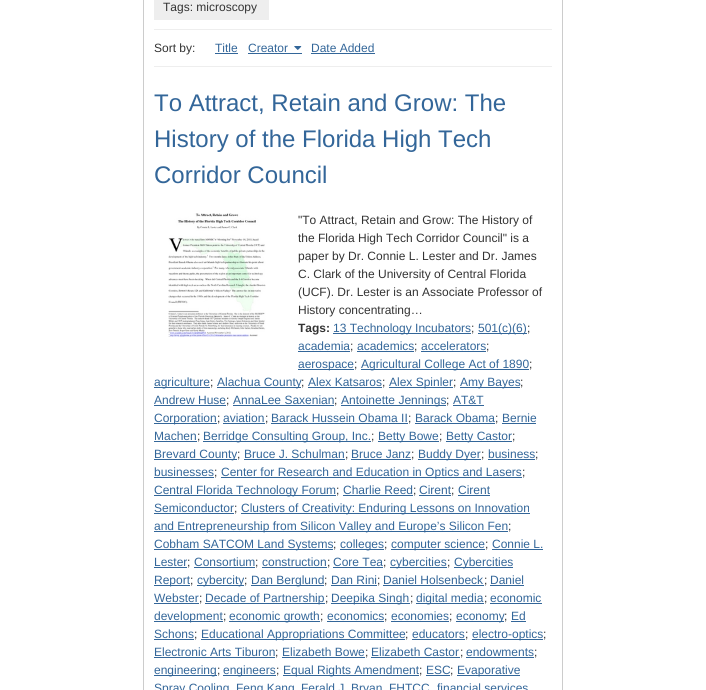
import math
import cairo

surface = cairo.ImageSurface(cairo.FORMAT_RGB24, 706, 690)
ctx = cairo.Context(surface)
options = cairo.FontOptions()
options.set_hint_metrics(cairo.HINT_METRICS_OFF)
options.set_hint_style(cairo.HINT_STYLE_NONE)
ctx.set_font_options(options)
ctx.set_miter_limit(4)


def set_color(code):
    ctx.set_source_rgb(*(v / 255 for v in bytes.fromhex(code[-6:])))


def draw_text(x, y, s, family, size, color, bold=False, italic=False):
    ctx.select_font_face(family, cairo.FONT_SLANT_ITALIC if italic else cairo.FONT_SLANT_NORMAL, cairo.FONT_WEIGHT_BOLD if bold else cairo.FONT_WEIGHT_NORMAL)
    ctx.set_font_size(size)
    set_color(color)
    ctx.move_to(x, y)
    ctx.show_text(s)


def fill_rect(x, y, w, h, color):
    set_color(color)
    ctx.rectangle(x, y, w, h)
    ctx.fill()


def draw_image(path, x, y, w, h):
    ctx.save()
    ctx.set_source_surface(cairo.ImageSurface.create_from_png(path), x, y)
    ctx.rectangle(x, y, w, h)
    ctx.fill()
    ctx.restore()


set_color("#ffffff")
ctx.paint()
ctx.rectangle(143.5, -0.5, 419, 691)
set_color("#cccccc")
ctx.set_line_width(1)
ctx.stroke()
fill_rect(154, 29, 398, 1, "#eeeeee")
fill_rect(154, 0, 115, 20, "#eeeeee")
draw_text(163, 11, "Tags: microscopy", "Liberation Sans", 12, "#333333")
draw_text(154, 52, "Sort by:", "Liberation Sans", 12, "#333333")
draw_text(215, 52, "Title", "Liberation Sans", 12, "#336699")
fill_rect(215, 53, 23, 1, "#336699")
draw_text(248, 52, "Creator", "Liberation Sans", 12, "#336699")
fill_rect(248, 53, 54, 1, "#336699")
draw_image("assets/img1.png", 294, 46, 8, 4)
draw_text(311, 52, "Date Added", "Liberation Sans", 12, "#336699")
fill_rect(311, 53, 64, 1, "#336699")
fill_rect(154, 66, 398, 1, "#eeeeee")
draw_text(154, 111, "To Attract, Retain and Grow: The", "Liberation Sans", 24, "#336699")
draw_text(154, 147, "History of the Florida High Tech", "Liberation Sans", 24, "#336699")
draw_text(154, 183, "Corridor Council", "Liberation Sans", 24, "#336699")
draw_image("assets/img2.png", 168, 213, 98, 124)
draw_text(298, 224, "\"To Attract, Retain and Grow: The History of", "Liberation Sans", 12, "#333333")
draw_text(298, 242, "the Florida High Tech Corridor Council\" is a", "Liberation Sans", 12, "#333333")
draw_text(298, 260, "paper by Dr. Connie L. Lester and Dr. James", "Liberation Sans", 12, "#333333")
draw_text(298, 278, "C. Clark of the University of Central Florida", "Liberation Sans", 12, "#333333")
draw_text(298, 296, "(UCF). Dr. Lester is an Associate Professor of", "Liberation Sans", 12, "#333333")
draw_text(298, 314, "History concentrating…", "Liberation Sans", 12, "#333333")
draw_text(298, 332, "Tags:", "Liberation Sans", 12, "#333333", bold=True)
fill_rect(333, 333, 138, 1, "#336699")
draw_text(333, 332, "13 Technology Incubators", "Liberation Sans", 12, "#336699")
draw_text(471, 332, ";", "Liberation Sans", 12, "#333333")
fill_rect(478, 333, 49, 1, "#336699")
draw_text(478, 332, "501(c)(6)", "Liberation Sans", 12, "#336699")
draw_text(527, 332, ";", "Liberation Sans", 12, "#333333")
draw_text(298, 350, "academia", "Liberation Sans", 12, "#336699")
fill_rect(298, 351, 52, 1, "#336699")
draw_text(350, 350, ";", "Liberation Sans", 12, "#333333")
draw_text(357, 350, "academics", "Liberation Sans", 12, "#336699")
fill_rect(357, 351, 57, 1, "#336699")
draw_text(414, 350, ";", "Liberation Sans", 12, "#333333")
draw_text(421, 350, "accelerators", "Liberation Sans", 12, "#336699")
fill_rect(421, 351, 65, 1, "#336699")
draw_text(486, 350, ";", "Liberation Sans", 12, "#333333")
fill_rect(298, 369, 56, 1, "#336699")
draw_text(298, 368, "aerospace", "Liberation Sans", 12, "#336699")
draw_text(354, 368, ";", "Liberation Sans", 12, "#333333")
fill_rect(361, 369, 168, 1, "#336699")
draw_text(361, 368, "Agricultural College Act of 1890", "Liberation Sans", 12, "#336699")
draw_text(529, 368, ";", "Liberation Sans", 12, "#333333")
fill_rect(154, 387, 56, 1, "#336699")
draw_text(154, 386, "agriculture", "Liberation Sans", 12, "#336699")
draw_text(210, 386, ";", "Liberation Sans", 12, "#333333")
fill_rect(217, 387, 84, 1, "#336699")
draw_text(217, 386, "Alachua County", "Liberation Sans", 12, "#336699")
draw_text(301, 386, ";", "Liberation Sans", 12, "#333333")
draw_text(308, 386, "Alex Katsaros", "Liberation Sans", 12, "#336699")
fill_rect(308, 387, 74, 1, "#336699")
draw_text(382, 386, ";", "Liberation Sans", 12, "#333333")
fill_rect(389, 387, 64, 1, "#336699")
draw_text(389, 386, "Alex Spinler", "Liberation Sans", 12, "#336699")
draw_text(453, 386, ";", "Liberation Sans", 12, "#333333")
fill_rect(460, 387, 60, 1, "#336699")
draw_text(460, 386, "Amy Bayes", "Liberation Sans", 12, "#336699")
draw_text(520, 386, ";", "Liberation Sans", 12, "#333333")
draw_text(154, 404, "Andrew Huse", "Liberation Sans", 12, "#336699")
fill_rect(154, 405, 72, 1, "#336699")
draw_text(226, 404, ";", "Liberation Sans", 12, "#333333")
draw_text(233, 404, "AnnaLee Saxenian", "Liberation Sans", 12, "#336699")
fill_rect(233, 405, 101, 1, "#336699")
draw_text(334, 404, ";", "Liberation Sans", 12, "#333333")
fill_rect(341, 405, 105, 1, "#336699")
draw_text(341, 404, "Antoinette Jennings", "Liberation Sans", 12, "#336699")
draw_text(446, 404, ";", "Liberation Sans", 12, "#333333")
draw_text(453, 404, "AT&T", "Liberation Sans", 12, "#336699")
fill_rect(453, 405, 31, 1, "#336699")
fill_rect(154, 423, 63, 1, "#336699")
draw_text(154, 422, "Corporation", "Liberation Sans", 12, "#336699")
draw_text(217, 422, ";", "Liberation Sans", 12, "#333333")
draw_text(223, 422, "aviation", "Liberation Sans", 12, "#336699")
fill_rect(223, 423, 42, 1, "#336699")
draw_text(265, 422, ";", "Liberation Sans", 12, "#333333")
draw_text(271, 422, "Barack Hussein Obama II", "Liberation Sans", 12, "#336699")
fill_rect(271, 423, 137, 1, "#336699")
draw_text(408, 422, ";", "Liberation Sans", 12, "#333333")
draw_text(415, 422, "Barack Obama", "Liberation Sans", 12, "#336699")
fill_rect(415, 423, 80, 1, "#336699")
draw_text(495, 422, ";", "Liberation Sans", 12, "#333333")
draw_text(502, 422, "Bernie", "Liberation Sans", 12, "#336699")
fill_rect(502, 423, 34, 1, "#336699")
draw_text(154, 440, "Machen", "Liberation Sans", 12, "#336699")
fill_rect(154, 441, 43, 1, "#336699")
draw_text(197, 440, ";", "Liberation Sans", 12, "#333333")
fill_rect(203, 441, 168, 1, "#336699")
draw_text(203, 440, "Berridge Consulting Group, Inc.", "Liberation Sans", 12, "#336699")
draw_text(371, 440, ";", "Liberation Sans", 12, "#333333")
fill_rect(378, 441, 61, 1, "#336699")
draw_text(378, 440, "Betty Bowe", "Liberation Sans", 12, "#336699")
draw_text(439, 440, ";", "Liberation Sans", 12, "#333333")
fill_rect(446, 441, 66, 1, "#336699")
draw_text(446, 440, "Betty Castor", "Liberation Sans", 12, "#336699")
draw_text(512, 440, ";", "Liberation Sans", 12, "#333333")
fill_rect(154, 459, 83, 1, "#336699")
draw_text(154, 458, "Brevard County", "Liberation Sans", 12, "#336699")
draw_text(237, 458, ";", "Liberation Sans", 12, "#333333")
draw_text(244, 458, "Bruce J. Schulman", "Liberation Sans", 12, "#336699")
fill_rect(244, 459, 101, 1, "#336699")
draw_text(345, 458, ";", "Liberation Sans", 12, "#333333")
draw_text(351, 458, "Bruce Janz", "Liberation Sans", 12, "#336699")
fill_rect(351, 459, 60, 1, "#336699")
draw_text(411, 458, ";", "Liberation Sans", 12, "#333333")
fill_rect(418, 459, 63, 1, "#336699")
draw_text(418, 458, "Buddy Dyer", "Liberation Sans", 12, "#336699")
draw_text(481, 458, ";", "Liberation Sans", 12, "#333333")
draw_text(488, 458, "business", "Liberation Sans", 12, "#336699")
fill_rect(488, 459, 47, 1, "#336699")
draw_text(535, 458, ";", "Liberation Sans", 12, "#333333")
draw_text(154, 476, "businesses", "Liberation Sans", 12, "#336699")
fill_rect(154, 477, 60, 1, "#336699")
draw_text(214, 476, ";", "Liberation Sans", 12, "#333333")
fill_rect(221, 477, 301, 1, "#336699")
draw_text(221, 476, "Center for Research and Education in Optics and Lasers", "Liberation Sans", 12, "#336699")
draw_text(522, 476, ";", "Liberation Sans", 12, "#333333")
fill_rect(154, 495, 182, 1, "#336699")
draw_text(154, 494, "Central Florida Technology Forum", "Liberation Sans", 12, "#336699")
draw_text(336, 494, ";", "Liberation Sans", 12, "#333333")
draw_text(343, 494, "Charlie Reed", "Liberation Sans", 12, "#336699")
fill_rect(343, 495, 70, 1, "#336699")
draw_text(413, 494, ";", "Liberation Sans", 12, "#333333")
draw_text(419, 494, "Cirent", "Liberation Sans", 12, "#336699")
fill_rect(419, 495, 32, 1, "#336699")
draw_text(451, 494, ";", "Liberation Sans", 12, "#333333")
draw_text(458, 494, "Cirent", "Liberation Sans", 12, "#336699")
fill_rect(458, 495, 32, 1, "#336699")
draw_text(154, 512, "Semiconductor", "Liberation Sans", 12, "#336699")
fill_rect(154, 513, 80, 1, "#336699")
draw_text(234, 512, ";", "Liberation Sans", 12, "#333333")
fill_rect(241, 513, 289, 1, "#336699")
draw_text(241, 512, "Clusters of Creativity: Enduring Lessons on Innovation", "Liberation Sans", 12, "#336699")
fill_rect(154, 531, 354, 1, "#336699")
draw_text(154, 530, "and Entrepreneurship from Silicon Valley and Europe’s Silicon Fen", "Liberation Sans", 12, "#336699")
draw_text(508, 530, ";", "Liberation Sans", 12, "#333333")
fill_rect(154, 549, 179, 1, "#336699")
draw_text(154, 548, "Cobham SATCOM Land Systems", "Liberation Sans", 12, "#336699")
draw_text(333, 548, ";", "Liberation Sans", 12, "#333333")
fill_rect(340, 549, 44, 1, "#336699")
draw_text(340, 548, "colleges", "Liberation Sans", 12, "#336699")
draw_text(384, 548, ";", "Liberation Sans", 12, "#333333")
fill_rect(391, 549, 94, 1, "#336699")
draw_text(391, 548, "computer science", "Liberation Sans", 12, "#336699")
draw_text(485, 548, ";", "Liberation Sans", 12, "#333333")
draw_text(492, 548, "Connie L.", "Liberation Sans", 12, "#336699")
fill_rect(492, 549, 51, 1, "#336699")
draw_text(154, 566, "Lester", "Liberation Sans", 12, "#336699")
fill_rect(154, 567, 33, 1, "#336699")
draw_text(187, 566, ";", "Liberation Sans", 12, "#333333")
draw_text(194, 566, "Consortium", "Liberation Sans", 12, "#336699")
fill_rect(194, 567, 61, 1, "#336699")
draw_text(255, 566, ";", "Liberation Sans", 12, "#333333")
draw_text(262, 566, "construction", "Liberation Sans", 12, "#336699")
fill_rect(262, 567, 65, 1, "#336699")
draw_text(327, 566, ";", "Liberation Sans", 12, "#333333")
draw_text(333, 566, "Core Tea", "Liberation Sans", 12, "#336699")
fill_rect(333, 567, 50, 1, "#336699")
draw_text(383, 566, ";", "Liberation Sans", 12, "#333333")
fill_rect(390, 567, 57, 1, "#336699")
draw_text(390, 566, "cybercities", "Liberation Sans", 12, "#336699")
draw_text(447, 566, ";", "Liberation Sans", 12, "#333333")
fill_rect(454, 567, 59, 1, "#336699")
draw_text(454, 566, "Cybercities", "Liberation Sans", 12, "#336699")
fill_rect(154, 585, 36, 1, "#336699")
draw_text(154, 584, "Report", "Liberation Sans", 12, "#336699")
draw_text(190, 584, ";", "Liberation Sans", 12, "#333333")
fill_rect(197, 585, 47, 1, "#336699")
draw_text(197, 584, "cybercity", "Liberation Sans", 12, "#336699")
draw_text(244, 584, ";", "Liberation Sans", 12, "#333333")
fill_rect(251, 585, 73, 1, "#336699")
draw_text(251, 584, "Dan Berglund", "Liberation Sans", 12, "#336699")
draw_text(324, 584, ";", "Liberation Sans", 12, "#333333")
draw_text(331, 584, "Dan Rini", "Liberation Sans", 12, "#336699")
fill_rect(331, 585, 46, 1, "#336699")
draw_text(377, 584, ";", "Liberation Sans", 12, "#333333")
draw_text(383, 584, "Daniel Holsenbeck", "Liberation Sans", 12, "#336699")
fill_rect(383, 585, 101, 1, "#336699")
draw_text(484, 584, ";", "Liberation Sans", 12, "#333333")
draw_text(490, 584, "Daniel", "Liberation Sans", 12, "#336699")
fill_rect(490, 585, 34, 1, "#336699")
draw_text(154, 602, "Webster", "Liberation Sans", 12, "#336699")
fill_rect(154, 603, 45, 1, "#336699")
draw_text(199, 602, ";", "Liberation Sans", 12, "#333333")
fill_rect(205, 603, 120, 1, "#336699")
draw_text(205, 602, "Decade of Partnership", "Liberation Sans", 12, "#336699")
draw_text(325, 602, ";", "Liberation Sans", 12, "#333333")
fill_rect(331, 603, 79, 1, "#336699")
draw_text(331, 602, "Deepika Singh", "Liberation Sans", 12, "#336699")
draw_text(410, 602, ";", "Liberation Sans", 12, "#333333")
fill_rect(416, 603, 68, 1, "#336699")
draw_text(416, 602, "digital media", "Liberation Sans", 12, "#336699")
draw_text(484, 602, ";", "Liberation Sans", 12, "#333333")
draw_text(490, 602, "economic", "Liberation Sans", 12, "#336699")
fill_rect(490, 603, 52, 1, "#336699")
fill_rect(154, 621, 69, 1, "#336699")
draw_text(154, 620, "development", "Liberation Sans", 12, "#336699")
draw_text(223, 620, ";", "Liberation Sans", 12, "#333333")
fill_rect(229, 621, 91, 1, "#336699")
draw_text(229, 620, "economic growth", "Liberation Sans", 12, "#336699")
draw_text(320, 620, ";", "Liberation Sans", 12, "#333333")
draw_text(327, 620, "economics", "Liberation Sans", 12, "#336699")
fill_rect(327, 621, 57, 1, "#336699")
draw_text(384, 620, ";", "Liberation Sans", 12, "#333333")
draw_text(391, 620, "economies", "Liberation Sans", 12, "#336699")
fill_rect(391, 621, 58, 1, "#336699")
draw_text(449, 620, ";", "Liberation Sans", 12, "#333333")
fill_rect(456, 621, 48, 1, "#336699")
draw_text(456, 620, "economy", "Liberation Sans", 12, "#336699")
draw_text(504, 620, ";", "Liberation Sans", 12, "#333333")
draw_text(511, 620, "Ed", "Liberation Sans", 12, "#336699")
fill_rect(511, 621, 15, 1, "#336699")
draw_text(154, 638, "Schons", "Liberation Sans", 12, "#336699")
fill_rect(154, 639, 40, 1, "#336699")
draw_text(194, 638, ";", "Liberation Sans", 12, "#333333")
fill_rect(201, 639, 204, 1, "#336699")
draw_text(201, 638, "Educational Appropriations Committee", "Liberation Sans", 12, "#336699")
draw_text(405, 638, ";", "Liberation Sans", 12, "#333333")
draw_text(412, 638, "educators", "Liberation Sans", 12, "#336699")
fill_rect(412, 639, 53, 1, "#336699")
draw_text(465, 638, ";", "Liberation Sans", 12, "#333333")
fill_rect(472, 639, 71, 1, "#336699")
draw_text(472, 638, "electro-optics", "Liberation Sans", 12, "#336699")
draw_text(543, 638, ";", "Liberation Sans", 12, "#333333")
draw_text(154, 656, "Electronic Arts Tiburon", "Liberation Sans", 12, "#336699")
fill_rect(154, 657, 121, 1, "#336699")
draw_text(275, 656, ";", "Liberation Sans", 12, "#333333")
draw_text(282, 656, "Elizabeth Bowe", "Liberation Sans", 12, "#336699")
fill_rect(282, 657, 83, 1, "#336699")
draw_text(365, 656, ";", "Liberation Sans", 12, "#333333")
draw_text(371, 656, "Elizabeth Castor", "Liberation Sans", 12, "#336699")
fill_rect(371, 657, 89, 1, "#336699")
draw_text(460, 656, ";", "Liberation Sans", 12, "#333333")
draw_text(466, 656, "endowments", "Liberation Sans", 12, "#336699")
fill_rect(466, 657, 68, 1, "#336699")
draw_text(534, 656, ";", "Liberation Sans", 12, "#333333")
fill_rect(154, 675, 63, 1, "#336699")
draw_text(154, 674, "engineering", "Liberation Sans", 12, "#336699")
draw_text(217, 674, ";", "Liberation Sans", 12, "#333333")
fill_rect(223, 675, 53, 1, "#336699")
draw_text(223, 674, "engineers", "Liberation Sans", 12, "#336699")
draw_text(276, 674, ";", "Liberation Sans", 12, "#333333")
fill_rect(283, 675, 136, 1, "#336699")
draw_text(283, 674, "Equal Rights Amendment", "Liberation Sans", 12, "#336699")
draw_text(419, 674, ";", "Liberation Sans", 12, "#333333")
draw_text(426, 674, "ESC", "Liberation Sans", 12, "#336699")
fill_rect(426, 675, 24, 1, "#336699")
draw_text(450, 674, ";", "Liberation Sans", 12, "#333333")
fill_rect(457, 675, 63, 1, "#336699")
draw_text(457, 674, "Evaporative", "Liberation Sans", 12, "#336699")
draw_text(154, 692, "Spray Cooling", "Liberation Sans", 12, "#336699")
draw_text(236, 692, "Feng Kang", "Liberation Sans", 12, "#336699")
draw_text(301, 692, "Ferald J. Bryan", "Liberation Sans", 12, "#336699")
draw_text(389, 692, "FHTCC", "Liberation Sans", 12, "#336699")
draw_text(437, 692, "financial services", "Liberation Sans", 12, "#336699")
surface.write_to_png("output.png")
